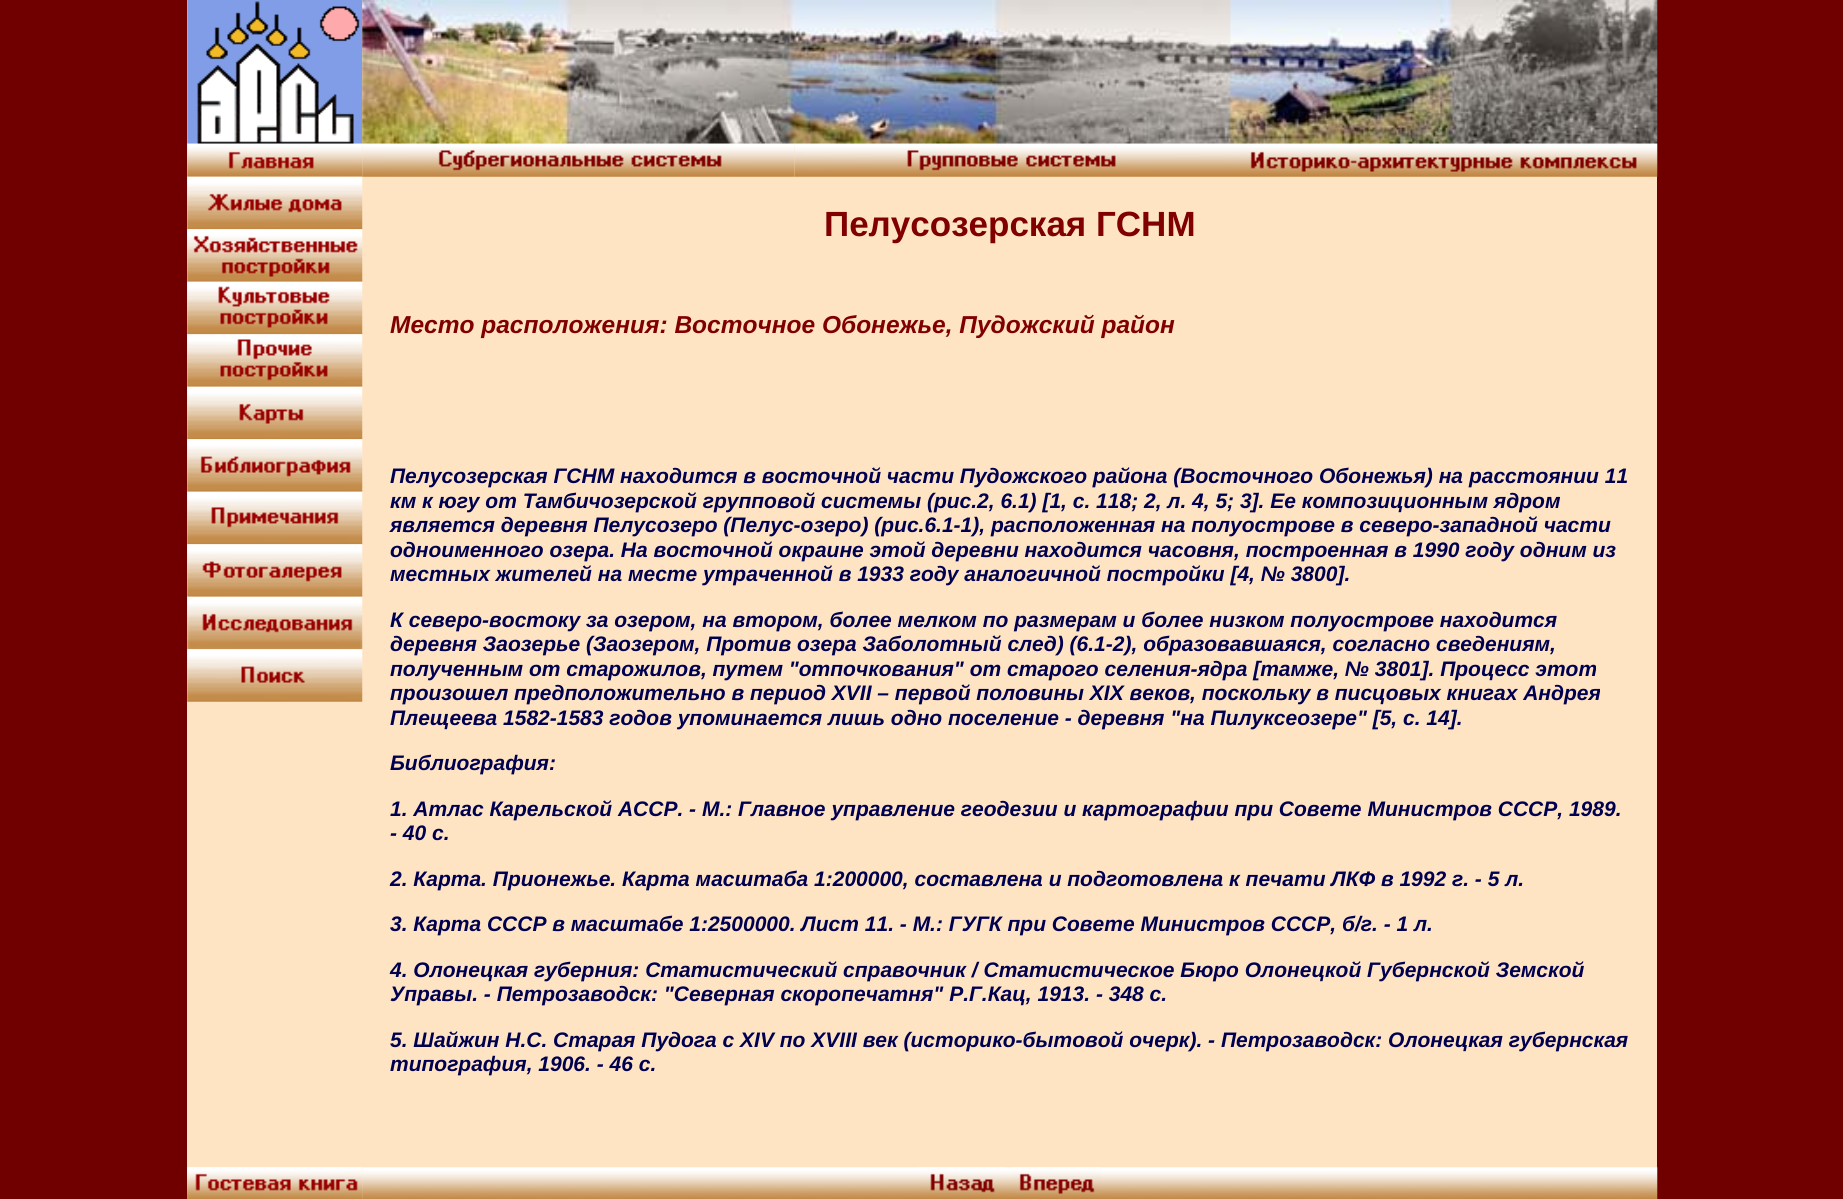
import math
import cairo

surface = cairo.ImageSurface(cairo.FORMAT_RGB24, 1843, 1199)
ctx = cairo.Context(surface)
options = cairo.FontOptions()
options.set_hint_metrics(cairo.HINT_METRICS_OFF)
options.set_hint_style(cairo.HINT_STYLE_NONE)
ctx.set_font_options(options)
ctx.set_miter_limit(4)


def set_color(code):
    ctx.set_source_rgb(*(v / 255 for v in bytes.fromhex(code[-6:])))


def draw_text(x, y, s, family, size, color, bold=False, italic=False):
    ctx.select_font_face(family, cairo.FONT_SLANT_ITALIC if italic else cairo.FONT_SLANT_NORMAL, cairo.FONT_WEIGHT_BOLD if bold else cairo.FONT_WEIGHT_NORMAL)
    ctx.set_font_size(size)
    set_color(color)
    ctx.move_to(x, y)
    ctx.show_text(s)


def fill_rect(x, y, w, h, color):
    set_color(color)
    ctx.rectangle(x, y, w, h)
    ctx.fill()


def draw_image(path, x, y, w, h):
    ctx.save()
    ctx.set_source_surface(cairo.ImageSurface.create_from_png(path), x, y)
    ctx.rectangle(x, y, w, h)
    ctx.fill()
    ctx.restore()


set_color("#700000")
ctx.paint()
fill_rect(187, 0, 1470, 1199, "#ffe4c4")
draw_image("assets/img3.png", 187, 143, 176, 34)
draw_image("assets/img4.png", 362, 143, 433, 34)
draw_image("assets/img1.png", 187, 0, 176, 144)
draw_image("assets/img5.png", 794, 143, 431, 34)
draw_image("assets/img6.png", 1225, 143, 433, 34)
draw_image("assets/img2.png", 362, 0, 1296, 144)
draw_image("assets/img7.png", 187, 176, 176, 54)
draw_image("assets/img8.png", 187, 229, 176, 53)
draw_image("assets/img9.png", 187, 281, 176, 54)
draw_image("assets/img10.png", 187, 334, 176, 53)
draw_image("assets/img11.png", 187, 386, 176, 54)
draw_image("assets/img12.png", 187, 439, 176, 53)
draw_image("assets/img13.png", 187, 491, 176, 54)
draw_image("assets/img14.png", 187, 544, 176, 53)
draw_image("assets/img15.png", 187, 596, 176, 54)
draw_image("assets/img16.png", 187, 649, 176, 53)
draw_text(824, 236, "Пелусозерская ГСНМ", "Liberation Sans", 35, "#800000", bold=True)
draw_text(390, 333, "Место расположения: Восточное Обонежье, Пудожский район", "Liberation Sans", 24.5, "#800000", bold=True, italic=True)
draw_text(390, 483, "Пелусозерская ГСНМ находится в восточной части Пудожского района (Восточного Обонежья) на расстоянии 11", "Liberation Sans", 21, "#000050", bold=True, italic=True)
draw_text(390, 508, "км к югу от Тамбичозерской групповой системы (рис.2, 6.1) [1, с. 118; 2, л. 4, 5; 3]. Ее композиционным ядром", "Liberation Sans", 21, "#000050", bold=True, italic=True)
draw_text(390, 532, "является деревня Пелусозеро (Пелус-озеро) (рис.6.1-1), расположенная на полуострове в северо-западной части", "Liberation Sans", 21, "#000050", bold=True, italic=True)
draw_text(390, 557, "одноименного озера. На восточной окраине этой деревни находится часовня, построенная в 1990 году одним из", "Liberation Sans", 21, "#000050", bold=True, italic=True)
draw_text(390, 581, "местных жителей на месте утраченной в 1933 году аналогичной постройки [4, № 3800].", "Liberation Sans", 21, "#000050", bold=True, italic=True)
draw_text(390, 627, "К северо-востоку за озером, на втором, более мелком по размерам и более низком полуострове находится", "Liberation Sans", 21, "#000050", bold=True, italic=True)
draw_text(390, 651, "деревня Заозерье (Заозером, Против озера Заболотный след) (6.1-2), образовавшаяся, согласно сведениям,", "Liberation Sans", 21, "#000050", bold=True, italic=True)
draw_text(390, 676, "полученным от старожилов, путем \"отпочкования\" от старого селения-ядра [тамже, № 3801]. Процесс этот", "Liberation Sans", 21, "#000050", bold=True, italic=True)
draw_text(390, 700, "произошел предположительно в период XVII – первой половины XIX веков, поскольку в писцовых книгах Андрея", "Liberation Sans", 21, "#000050", bold=True, italic=True)
draw_text(390, 725, "Плещеева 1582-1583 годов упоминается лишь одно поселение - деревня \"на Пилуксеозере\" [5, с. 14].", "Liberation Sans", 21, "#000050", bold=True, italic=True)
draw_text(390, 770, "Библиография:", "Liberation Sans", 21, "#000050", bold=True, italic=True)
draw_text(390, 816, "1. Атлас Карельской АССР. - М.: Главное управление геодезии и картографии при Совете Министров СССР, 1989.", "Liberation Sans", 21, "#000050", bold=True, italic=True)
draw_text(390, 840, "- 40 с.", "Liberation Sans", 21, "#000050", bold=True, italic=True)
draw_text(390, 886, "2. Карта. Прионежье. Карта масштаба 1:200000, составлена и подготовлена к печати ЛКФ в 1992 г. - 5 л.", "Liberation Sans", 21, "#000050", bold=True, italic=True)
draw_text(390, 931, "3. Карта СССР в масштабе 1:2500000. Лист 11. - М.: ГУГК при Совете Министров СССР, б/г. - 1 л.", "Liberation Sans", 21, "#000050", bold=True, italic=True)
draw_text(390, 977, "4. Олонецкая губерния: Статистический справочник / Статистическое Бюро Олонецкой Губернской Земской", "Liberation Sans", 21, "#000050", bold=True, italic=True)
draw_text(390, 1001, "Управы. - Петрозаводск: \"Северная скоропечатня\" Р.Г.Кац, 1913. - 348 с.", "Liberation Sans", 21, "#000050", bold=True, italic=True)
draw_text(390, 1047, "5. Шайжин Н.С. Старая Пудога с XIV по XVIII век (историко-бытовой очерк). - Петрозаводск: Олонецкая губернская", "Liberation Sans", 21, "#000050", bold=True, italic=True)
draw_text(390, 1071, "типография, 1906. - 46 с.", "Liberation Sans", 21, "#000050", bold=True, italic=True)
draw_image("assets/img17.png", 187, 1167, 176, 32)
draw_image("assets/img19.png", 362, 1167, 1296, 32)
draw_image("assets/img18.png", 187, 1167, 176, 32)
draw_image("assets/img20.png", 919, 1167, 87, 26)
draw_image("assets/img21.png", 1013, 1167, 88, 27)
surface.write_to_png("output.png")
